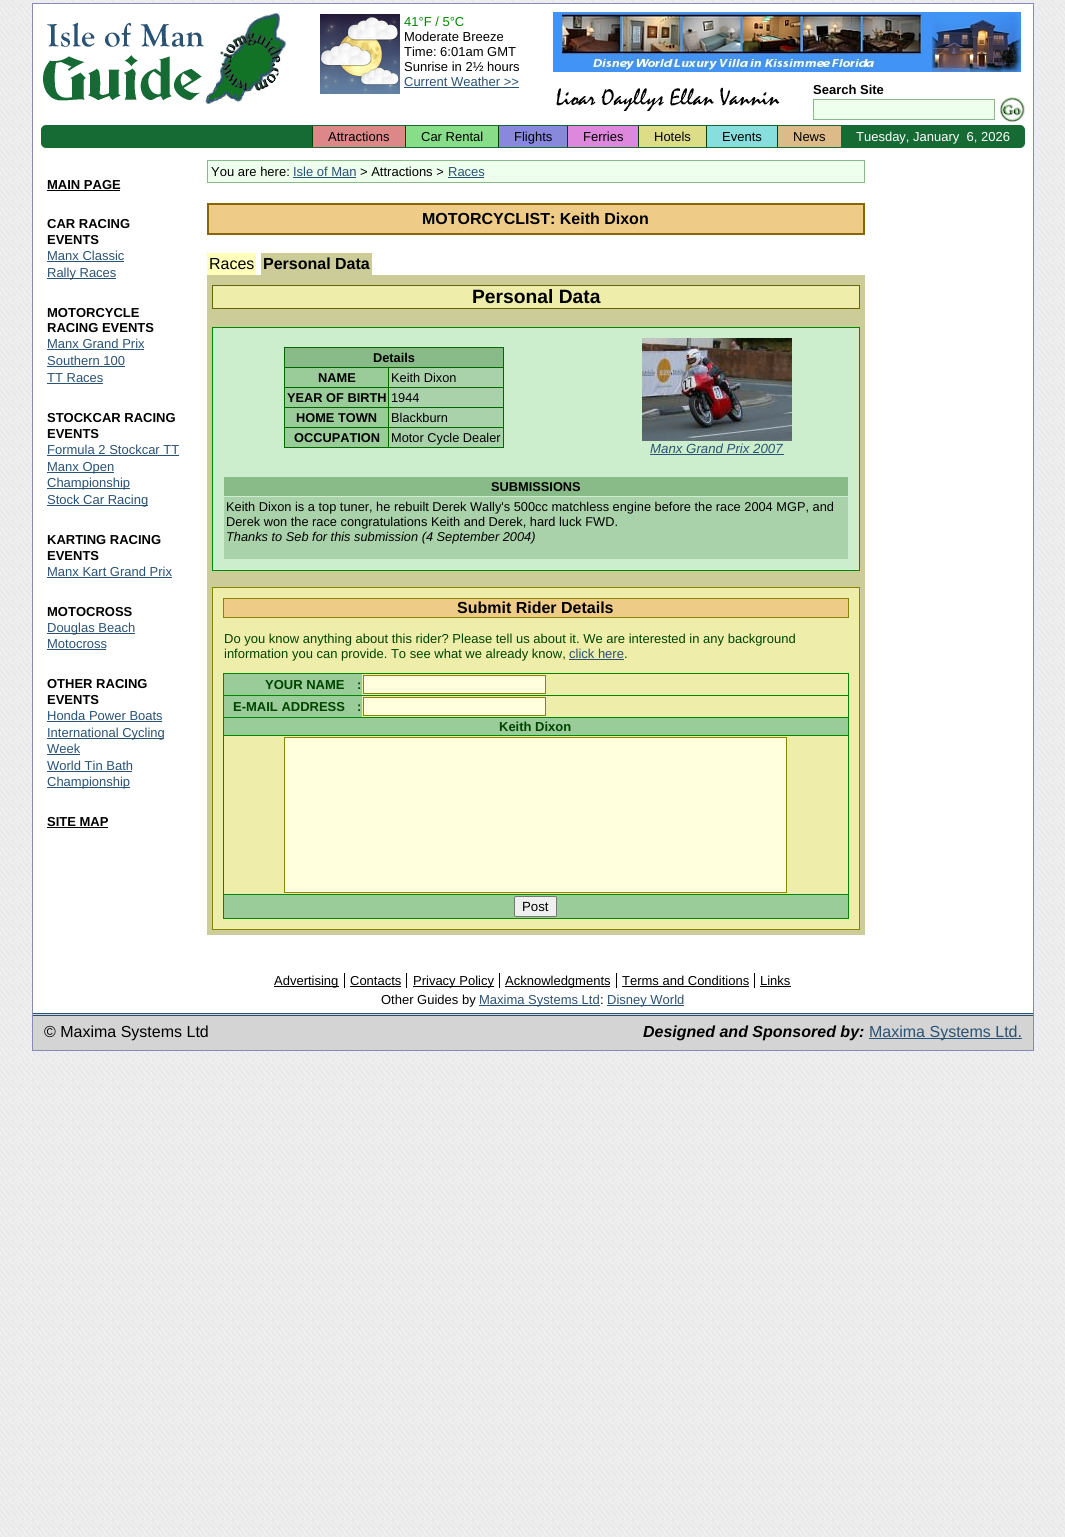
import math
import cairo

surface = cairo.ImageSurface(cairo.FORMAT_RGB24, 1065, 1537)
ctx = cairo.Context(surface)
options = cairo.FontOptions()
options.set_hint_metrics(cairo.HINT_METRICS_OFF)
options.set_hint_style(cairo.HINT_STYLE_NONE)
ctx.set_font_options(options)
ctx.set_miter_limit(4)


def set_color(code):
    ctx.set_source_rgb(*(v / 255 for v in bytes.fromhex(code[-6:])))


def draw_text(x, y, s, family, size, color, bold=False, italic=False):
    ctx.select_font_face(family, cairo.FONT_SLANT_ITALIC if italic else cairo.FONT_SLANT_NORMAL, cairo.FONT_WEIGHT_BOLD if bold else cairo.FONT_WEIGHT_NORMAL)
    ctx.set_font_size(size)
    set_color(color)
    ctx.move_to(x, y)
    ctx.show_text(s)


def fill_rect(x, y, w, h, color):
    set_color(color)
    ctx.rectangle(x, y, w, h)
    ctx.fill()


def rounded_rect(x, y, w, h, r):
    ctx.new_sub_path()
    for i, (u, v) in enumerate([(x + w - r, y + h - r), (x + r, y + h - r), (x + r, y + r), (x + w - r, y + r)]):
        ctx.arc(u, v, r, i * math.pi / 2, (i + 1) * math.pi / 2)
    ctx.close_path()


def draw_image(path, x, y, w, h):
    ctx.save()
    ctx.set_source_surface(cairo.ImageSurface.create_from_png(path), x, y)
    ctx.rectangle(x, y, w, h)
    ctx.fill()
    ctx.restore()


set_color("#ffffff")
ctx.paint()
draw_image("assets/img1.png", 0, 0, 1065, 1537)
fill_rect(33, 4, 1000, 1009, "#ffffff")
ctx.rectangle(32.5, 3.5, 1001, 1047)
set_color("#8888bb")
ctx.set_line_width(1)
ctx.stroke()
draw_image("assets/img2.png", 43, 22, 161, 79)
draw_image("assets/img3.png", 205, 13, 81, 91)
draw_image("assets/img4.png", 320, 14, 80, 80)
draw_text(404, 26, "41°F / 5°C", "Liberation Sans", 13, "#008800")
draw_text(404, 41, "Moderate Breeze", "Liberation Sans", 13, "#000000")
draw_text(404, 56, "Time: 6:01am GMT", "Liberation Sans", 13, "#000000")
draw_text(404, 71, "Sunrise in 2½ hours", "Liberation Sans", 13, "#000000")
draw_text(404, 86, "Current Weather >>", "Liberation Sans", 13, "#2a5274")
fill_rect(404, 87, 115, 1, "#2a5274")
draw_image("assets/img5.png", 553, 12, 468, 60)
draw_image("assets/img6.png", 556, 87, 224, 24)
draw_text(813, 94, "Search Site", "Liberation Sans", 13, "#000000", bold=True)
set_color("#eeffee")
ctx.rectangle(813.5, 99.5, 181, 20)
ctx.fill_preserve()
set_color("#88bb88")
ctx.stroke()
draw_image("assets/img7.png", 1000, 97, 25, 25)
set_color("#166a34")
rounded_rect(41, 125, 984, 23, 5)
ctx.fill()
fill_rect(313, 126, 92, 21, "#dd8888")
fill_rect(312, 126, 1, 21, "#004400")
draw_text(328, 141, "Attractions", "Liberation Sans", 13, "#000000")
fill_rect(406, 126, 92, 21, "#88dd88")
fill_rect(405, 126, 1, 21, "#004400")
draw_text(421, 141, "Car Rental", "Liberation Sans", 13, "#000000")
fill_rect(499, 126, 68, 21, "#8888dd")
fill_rect(498, 126, 1, 21, "#004400")
draw_text(514, 141, "Flights", "Liberation Sans", 13, "#000000")
fill_rect(568, 126, 70, 21, "#dd88dd")
fill_rect(567, 126, 1, 21, "#004400")
draw_text(583, 141, "Ferries", "Liberation Sans", 13, "#000000")
fill_rect(639, 126, 67, 21, "#dddd88")
fill_rect(638, 126, 1, 21, "#004400")
draw_text(654, 141, "Hotels", "Liberation Sans", 13, "#000000")
fill_rect(707, 126, 70, 21, "#88dddd")
fill_rect(706, 126, 1, 21, "#004400")
draw_text(722, 141, "Events", "Liberation Sans", 13, "#000000")
fill_rect(778, 126, 63, 21, "#ddbb88")
fill_rect(777, 126, 1, 21, "#004400")
draw_text(793, 141, "News", "Liberation Sans", 13, "#000000")
draw_text(856, 141, "Tuesday, January  6, 2026", "Liberation Sans", 13, "#ffffff")
draw_text(47, 189, "MAIN PAGE", "Liberation Sans", 13, "#000000", bold=True)
fill_rect(47, 190, 73, 1, "#000000")
draw_text(47, 228, "CAR RACING", "Liberation Sans", 13, "#000000", bold=True)
draw_text(47, 244, "EVENTS", "Liberation Sans", 13, "#000000", bold=True)
draw_text(47, 260, "Manx Classic", "Liberation Sans", 13, "#2a5274")
fill_rect(47, 261, 77, 1, "#2a5274")
fill_rect(47, 278, 69, 1, "#2a5274")
draw_text(47, 277, "Rally Races", "Liberation Sans", 13, "#2a5274")
draw_text(47, 317, "MOTORCYCLE", "Liberation Sans", 13, "#000000", bold=True)
draw_text(47, 332, "RACING EVENTS", "Liberation Sans", 13, "#000000", bold=True)
draw_text(47, 348, "Manx Grand Prix", "Liberation Sans", 13, "#2a5274")
fill_rect(47, 349, 97, 1, "#2a5274")
draw_text(47, 365, "Southern 100", "Liberation Sans", 13, "#2a5274")
fill_rect(47, 366, 78, 1, "#2a5274")
draw_text(47, 382, "TT Races", "Liberation Sans", 13, "#2a5274")
fill_rect(47, 383, 56, 1, "#2a5274")
draw_text(47, 422, "STOCKCAR RACING", "Liberation Sans", 13, "#000000", bold=True)
draw_text(47, 438, "EVENTS", "Liberation Sans", 13, "#000000", bold=True)
draw_text(47, 454, "Formula 2 Stockcar TT", "Liberation Sans", 13, "#2a5274")
fill_rect(47, 455, 132, 1, "#2a5274")
fill_rect(47, 472, 67, 1, "#2a5274")
draw_text(47, 471, "Manx Open", "Liberation Sans", 13, "#2a5274")
fill_rect(47, 488, 83, 1, "#2a5274")
draw_text(47, 487, "Championship", "Liberation Sans", 13, "#2a5274")
fill_rect(47, 505, 101, 1, "#2a5274")
draw_text(47, 504, "Stock Car Racing", "Liberation Sans", 13, "#2a5274")
draw_text(47, 544, "KARTING RACING", "Liberation Sans", 13, "#000000", bold=True)
draw_text(47, 560, "EVENTS", "Liberation Sans", 13, "#000000", bold=True)
draw_text(47, 576, "Manx Kart Grand Prix", "Liberation Sans", 13, "#2a5274")
fill_rect(47, 577, 125, 1, "#2a5274")
draw_text(47, 616, "MOTOCROSS", "Liberation Sans", 13, "#000000", bold=True)
fill_rect(47, 633, 88, 1, "#2a5274")
draw_text(47, 632, "Douglas Beach", "Liberation Sans", 13, "#2a5274")
draw_text(47, 648, "Motocross", "Liberation Sans", 13, "#2a5274")
fill_rect(47, 649, 59, 1, "#2a5274")
draw_text(47, 688, "OTHER RACING", "Liberation Sans", 13, "#000000", bold=True)
draw_text(47, 704, "EVENTS", "Liberation Sans", 13, "#000000", bold=True)
draw_text(47, 720, "Honda Power Boats", "Liberation Sans", 13, "#2a5274")
fill_rect(47, 721, 115, 1, "#2a5274")
fill_rect(47, 738, 117, 1, "#2a5274")
draw_text(47, 737, "International Cycling", "Liberation Sans", 13, "#2a5274")
draw_text(47, 753, "Week", "Liberation Sans", 13, "#2a5274")
fill_rect(47, 754, 33, 1, "#2a5274")
draw_text(47, 770, "World Tin Bath", "Liberation Sans", 13, "#2a5274")
fill_rect(47, 771, 85, 1, "#2a5274")
fill_rect(47, 787, 83, 1, "#2a5274")
draw_text(47, 786, "Championship", "Liberation Sans", 13, "#2a5274")
draw_text(47, 826, "SITE MAP", "Liberation Sans", 13, "#000000", bold=True)
fill_rect(47, 827, 61, 1, "#000000")
set_color("#eeffee")
ctx.rectangle(207.5, 160.5, 657, 22)
ctx.fill_preserve()
set_color("#88bb88")
ctx.stroke()
draw_text(211, 176, "You are here:", "Liberation Sans", 13, "#000000")
draw_text(293, 176, "Isle of Man", "Liberation Sans", 13, "#2a5274")
fill_rect(293, 177, 63, 1, "#2a5274")
draw_text(360, 176, "> Attractions >", "Liberation Sans", 13, "#000000")
draw_text(448, 176, "Races", "Liberation Sans", 13, "#2a5274")
fill_rect(448, 177, 36, 1, "#2a5274")
fill_rect(207, 203, 658, 32, "#886600")
fill_rect(209, 205, 654, 28, "#eecc88")
draw_text(422, 224, "MOTORCYCLIST: Keith Dixon", "Liberation Sans", 16, "#000000", bold=True)
fill_rect(207, 253, 49, 22, "#ffffbb")
draw_text(209, 269, "Races", "Liberation Sans", 16, "#000000")
fill_rect(261, 253, 111, 22, "#cccc99")
draw_text(263, 269, "Personal Data", "Liberation Sans", 16, "#000000", bold=True)
fill_rect(207, 275, 658, 10, "#cccc99")
fill_rect(207, 285, 5, 645, "#cccc99")
fill_rect(212, 309, 648, 278, "#cccc99")
fill_rect(212, 285, 648, 24, "#666600")
fill_rect(213, 286, 646, 22, "#eeeeaa")
draw_text(472, 303, "Personal Data", "Liberation Sans", 19.25, "#000000", bold=True)
fill_rect(212, 327, 648, 244, "#008800")
fill_rect(213, 328, 646, 242, "#cceecc")
fill_rect(284, 347, 220, 101, "#006600")
fill_rect(285, 348, 218, 19, "#88bb88")
draw_text(373, 362, "Details", "Liberation Sans", 12.8, "#000000", bold=True)
fill_rect(285, 368, 103, 19, "#99cc99")
draw_text(318, 382, "NAME", "Liberation Sans", 12.8, "#000000", bold=True)
fill_rect(389, 368, 114, 19, "#aad2aa")
draw_text(391, 382, "Keith Dixon", "Liberation Sans", 12.8, "#000000")
fill_rect(285, 388, 103, 19, "#99cc99")
draw_text(287, 402, "YEAR OF BIRTH", "Liberation Sans", 12.8, "#000000", bold=True)
fill_rect(389, 388, 114, 19, "#aad2aa")
draw_text(391, 402, "1944", "Liberation Sans", 12.8, "#000000")
fill_rect(285, 408, 103, 19, "#99cc99")
draw_text(296, 422, "HOME TOWN", "Liberation Sans", 12.8, "#000000", bold=True)
fill_rect(389, 408, 114, 19, "#aad2aa")
draw_text(391, 422, "Blackburn", "Liberation Sans", 12.8, "#000000")
fill_rect(285, 428, 103, 19, "#99cc99")
draw_text(294, 442, "OCCUPATION", "Liberation Sans", 12.8, "#000000", bold=True)
fill_rect(389, 428, 114, 19, "#aad2aa")
draw_text(391, 442, "Motor Cycle Dealer", "Liberation Sans", 12.8, "#000000")
draw_image("assets/img8.png", 642, 338, 150, 103)
draw_text(650, 453, "Manx Grand Prix 2007", "Liberation Sans", 13.25, "#2a5274", italic=True)
fill_rect(650, 454, 134, 1, "#2a5274")
fill_rect(224, 477, 624, 19, "#88bb88")
draw_text(491, 491, "SUBMISSIONS", "Liberation Sans", 12.8, "#000000", bold=True)
fill_rect(224, 497, 624, 62, "#aad2aa")
draw_text(226, 511, "Keith Dixon is a top tuner, he rebuilt Derek Wally's 500cc matchless engine before the race 2004 MGP, and", "Liberation Sans", 12.8, "#000000")
draw_text(226, 526, "Derek won the race congratulations Keith and Derek, hard luck FWD.", "Liberation Sans", 12.8, "#000000")
draw_text(226, 541, "Thanks to Seb for this submission (4 September 2004)", "Liberation Sans", 12.8, "#000000", italic=True)
set_color("#eeeeaa")
ctx.rectangle(212.5, 587.5, 647, 342)
ctx.fill_preserve()
set_color("#888800")
ctx.stroke()
set_color("#eecc88")
ctx.rectangle(223.5, 598.5, 625, 19)
ctx.fill_preserve()
set_color("#888800")
ctx.stroke()
draw_text(457, 613, "Submit Rider Details", "Liberation Sans", 16, "#000000", bold=True)
draw_text(224, 643, "Do you know anything about this rider? Please tell us about it. We are interested in any background", "Liberation Sans", 13, "#004400")
draw_text(224, 658, "information you can provide. To see what we already know,", "Liberation Sans", 13, "#004400")
draw_text(569, 658, "click here", "Liberation Sans", 13, "#2a5274")
fill_rect(569, 659, 55, 1, "#2a5274")
draw_text(624, 658, ".", "Liberation Sans", 13, "#004400")
fill_rect(223, 673, 626, 1, "#008800")
fill_rect(848, 673, 1, 246, "#008800")
fill_rect(223, 918, 626, 1, "#008800")
fill_rect(223, 673, 1, 246, "#008800")
fill_rect(223, 695, 626, 1, "#008800")
set_color("#ffffdd")
ctx.rectangle(363.5, 675.5, 182, 18)
ctx.fill_preserve()
set_color("#888800")
ctx.stroke()
fill_rect(224, 674, 138, 21, "#99cc99")
draw_text(265, 689, "YOUR NAME", "Liberation Sans", 13, "#004400", bold=True)
draw_text(357, 689, ":", "Liberation Sans", 13, "#004400", bold=True)
fill_rect(224, 696, 138, 21, "#99cc99")
draw_text(233, 711, "E-MAIL ADDRESS", "Liberation Sans", 13, "#004400", bold=True)
draw_text(357, 711, ":", "Liberation Sans", 13, "#004400", bold=True)
set_color("#ffffdd")
ctx.rectangle(363.5, 697.5, 182, 18)
ctx.fill_preserve()
set_color("#888800")
ctx.stroke()
fill_rect(224, 718, 624, 17, "#99cc99")
fill_rect(223, 717, 626, 1, "#008800")
fill_rect(223, 735, 626, 1, "#008800")
draw_text(499, 731, "Keith Dixon", "Liberation Sans", 13, "#004400", bold=True)
set_color("#ffffdd")
ctx.rectangle(284.5, 737.5, 502, 155)
ctx.fill_preserve()
set_color("#888800")
ctx.stroke()
fill_rect(224, 895, 624, 23, "#99cc99")
fill_rect(223, 894, 626, 1, "#008800")
set_color("#efefef")
rounded_rect(514.5, 896.5, 42, 20, 1.5)
ctx.fill_preserve()
set_color("#767676")
ctx.stroke()
draw_text(522, 911, "Post", "Liberation Sans", 13.25, "#000000")
fill_rect(860, 285, 5, 645, "#cccc99")
fill_rect(207, 930, 658, 5, "#cccc99")
fill_rect(274, 986, 65, 1, "#000000")
draw_text(274, 985, "Advertising", "Liberation Sans", 13, "#000000")
draw_text(350, 985, "Contacts", "Liberation Sans", 13, "#000000")
fill_rect(344, 973, 1, 15, "#000000")
fill_rect(350, 986, 51, 1, "#000000")
fill_rect(413, 986, 81, 1, "#000000")
draw_text(413, 985, "Privacy Policy", "Liberation Sans", 13, "#000000")
fill_rect(406, 973, 1, 15, "#000000")
fill_rect(505, 986, 105, 1, "#000000")
draw_text(505, 985, "Acknowledgments", "Liberation Sans", 13, "#000000")
fill_rect(499, 973, 1, 15, "#000000")
draw_text(622, 985, "Terms and Conditions", "Liberation Sans", 13, "#000000")
fill_rect(616, 973, 1, 15, "#000000")
fill_rect(622, 986, 127, 1, "#000000")
draw_text(760, 985, "Links", "Liberation Sans", 13, "#000000")
fill_rect(754, 973, 1, 15, "#000000")
fill_rect(760, 986, 31, 1, "#000000")
draw_text(381, 1004, "Other Guides by", "Liberation Sans", 13, "#000000")
fill_rect(479, 1005, 121, 1, "#2a5274")
draw_text(479, 1004, "Maxima Systems Ltd", "Liberation Sans", 13, "#2a5274")
draw_text(600, 1004, ":", "Liberation Sans", 13, "#000000")
fill_rect(607, 1005, 77, 1, "#2a5274")
draw_text(607, 1004, "Disney World", "Liberation Sans", 13, "#2a5274")
fill_rect(33, 1014, 1000, 36, "#d4d4d4")
fill_rect(33, 1013, 1000, 1, "#2a5274")
fill_rect(33, 1015, 1000, 1, "#2a5274")
draw_text(44, 1037, "© Maxima Systems Ltd", "Liberation Sans", 16, "#000000")
draw_text(643, 1037, "Designed and Sponsored by:", "Liberation Sans", 16, "#000000", bold=True, italic=True)
fill_rect(869, 1038, 153, 1, "#2a5274")
draw_text(869, 1037, "Maxima Systems Ltd.", "Liberation Sans", 16, "#2a5274")
surface.write_to_png("output.png")
